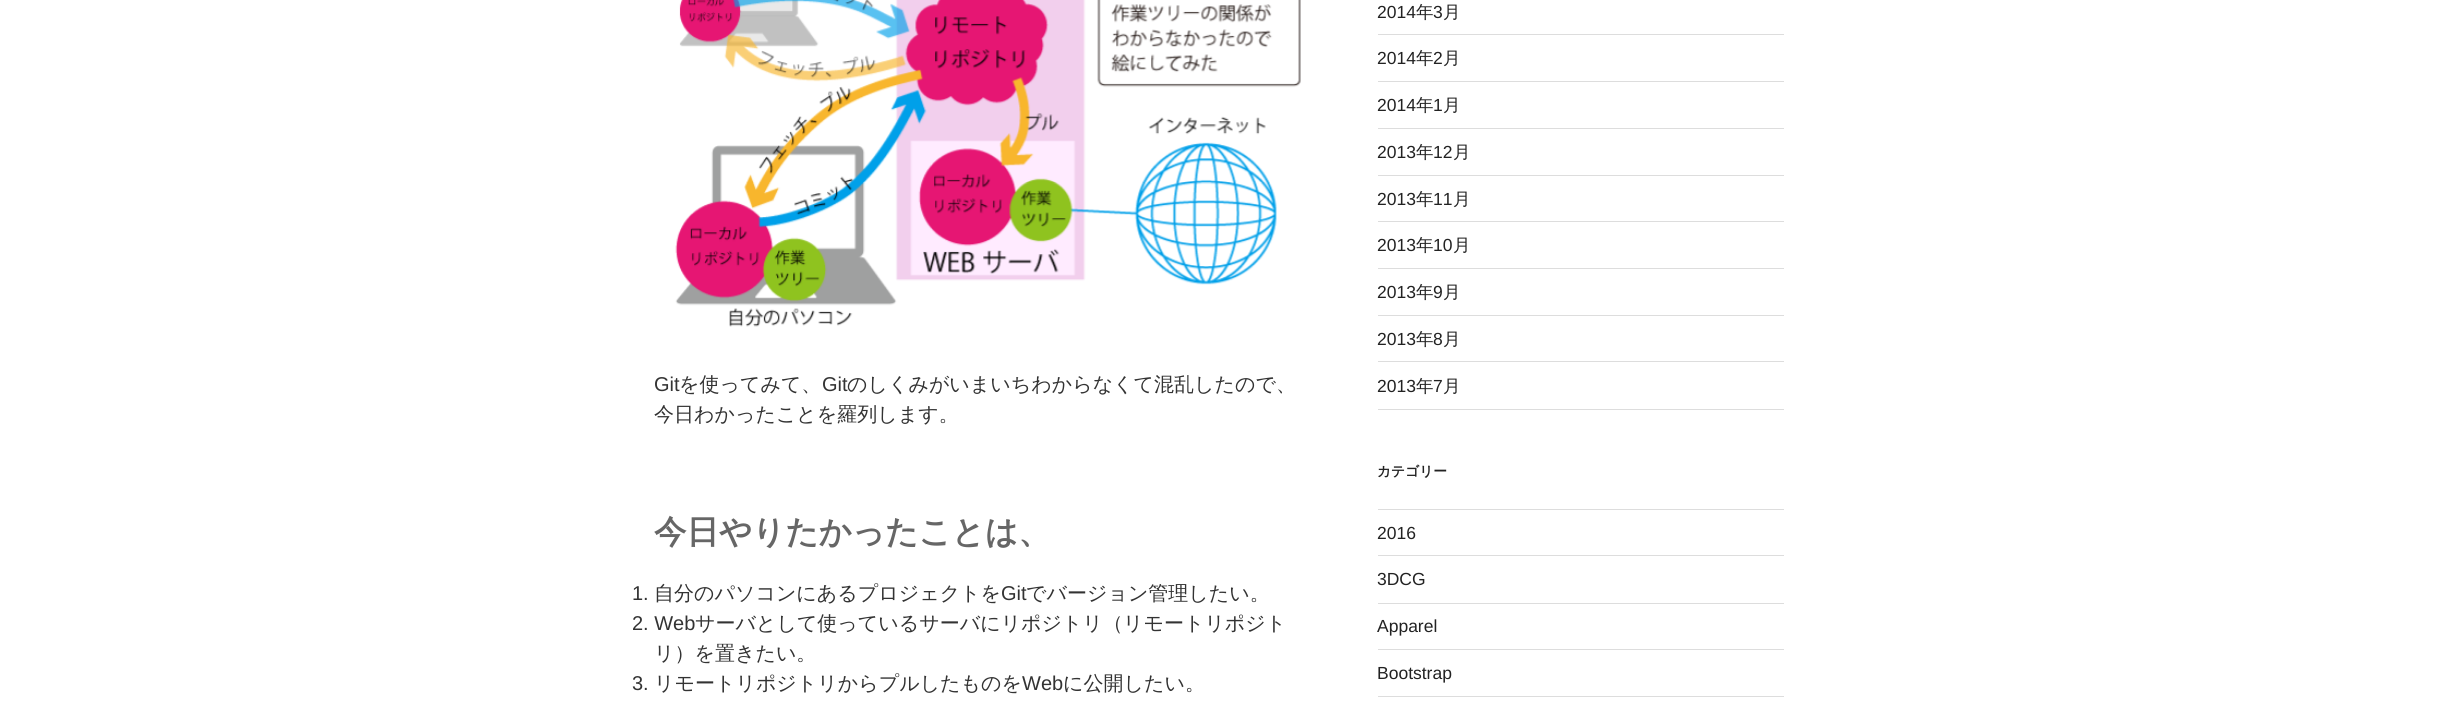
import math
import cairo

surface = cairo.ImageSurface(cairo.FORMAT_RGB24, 2437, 706)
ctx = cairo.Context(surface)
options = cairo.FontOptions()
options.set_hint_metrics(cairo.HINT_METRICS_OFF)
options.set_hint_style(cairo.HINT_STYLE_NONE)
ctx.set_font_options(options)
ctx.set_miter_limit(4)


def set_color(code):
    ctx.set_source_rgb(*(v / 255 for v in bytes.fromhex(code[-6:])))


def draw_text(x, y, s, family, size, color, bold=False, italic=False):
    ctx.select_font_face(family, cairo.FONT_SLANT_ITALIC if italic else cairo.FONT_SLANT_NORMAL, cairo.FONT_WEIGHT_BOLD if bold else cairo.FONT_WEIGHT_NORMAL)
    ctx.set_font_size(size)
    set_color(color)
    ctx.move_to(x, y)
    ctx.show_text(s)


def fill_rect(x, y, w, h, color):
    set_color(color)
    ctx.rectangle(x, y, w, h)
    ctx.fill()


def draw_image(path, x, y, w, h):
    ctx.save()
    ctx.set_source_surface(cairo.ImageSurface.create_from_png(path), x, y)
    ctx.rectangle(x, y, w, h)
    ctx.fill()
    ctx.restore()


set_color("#ffffff")
ctx.paint()
draw_image("assets/img1.png", 675, 0, 626, 327)
draw_text(654, 391, "Git", "Liberation Sans", 20, "#333333")
draw_text(679, 391, "を使ってみて、", "WenQuanYi Zen Hei Medium", 20, "#333333")
draw_text(822, 391, "Git", "Liberation Sans", 20, "#333333")
draw_text(847, 391, "のしくみがいまいちわからなくて混乱したので、", "WenQuanYi Zen Hei Medium", 20, "#333333")
draw_text(654, 421, "今日わかったことを羅列します。", "WenQuanYi Zen Hei Medium", 20, "#333333")
draw_text(654, 543, "今日やりたかったことは、", "WenQuanYi Zen Hei", 32.5, "#666666", bold=True)
draw_text(632, 600, "1.", "Liberation Sans", 20, "#333333")
draw_text(654, 600, "自分のパソコンにあるプロジェクトを", "WenQuanYi Zen Hei Medium", 20, "#333333")
draw_text(1001, 600, "Git", "Liberation Sans", 20, "#333333")
draw_text(1026, 600, "でバージョン管理したい。", "WenQuanYi Zen Hei Medium", 20, "#333333")
draw_text(632, 630, "2. Web", "Liberation Sans", 20, "#333333")
draw_text(695, 630, "サーバとして使っているサーバにリポジトリ（リモートリポジト", "WenQuanYi Zen Hei Medium", 20, "#333333")
draw_text(654, 660, "リ）を置きたい。", "WenQuanYi Zen Hei Medium", 20, "#333333")
draw_text(632, 690, "3.", "Liberation Sans", 20, "#333333")
draw_text(654, 690, "リモートリポジトリからプルしたものを", "WenQuanYi Zen Hei Medium", 20, "#333333")
draw_text(1022, 690, "Web", "Liberation Sans", 20, "#333333")
draw_text(1063, 690, "に公開したい。", "WenQuanYi Zen Hei Medium", 20, "#333333")
fill_rect(1378, 34, 406, 1, "#dddddd")
draw_text(1377, 18, "2014", "Liberation Sans", 17.5, "#222222")
draw_text(1416, 18, "年", "WenQuanYi Zen Hei Medium", 17.5, "#222222")
draw_text(1433, 18, "3", "Liberation Sans", 17.5, "#222222")
draw_text(1443, 18, "月", "WenQuanYi Zen Hei Medium", 17.5, "#222222")
fill_rect(1378, 81, 406, 1, "#dddddd")
draw_text(1377, 64, "2014", "Liberation Sans", 17.5, "#222222")
draw_text(1416, 64, "年", "WenQuanYi Zen Hei Medium", 17.5, "#222222")
draw_text(1433, 64, "2", "Liberation Sans", 17.5, "#222222")
draw_text(1443, 64, "月", "WenQuanYi Zen Hei Medium", 17.5, "#222222")
fill_rect(1378, 128, 406, 1, "#dddddd")
draw_text(1377, 111, "2014", "Liberation Sans", 17.5, "#222222")
draw_text(1416, 111, "年", "WenQuanYi Zen Hei Medium", 17.5, "#222222")
draw_text(1433, 111, "1", "Liberation Sans", 17.5, "#222222")
draw_text(1443, 111, "月", "WenQuanYi Zen Hei Medium", 17.5, "#222222")
fill_rect(1378, 175, 406, 1, "#dddddd")
draw_text(1377, 158, "2013", "Liberation Sans", 17.5, "#222222")
draw_text(1416, 158, "年", "WenQuanYi Zen Hei Medium", 17.5, "#222222")
draw_text(1433, 158, "12", "Liberation Sans", 17.5, "#222222")
draw_text(1453, 158, "月", "WenQuanYi Zen Hei Medium", 17.5, "#222222")
fill_rect(1378, 221, 406, 1, "#dddddd")
draw_text(1377, 205, "2013", "Liberation Sans", 17.5, "#222222")
draw_text(1416, 205, "年", "WenQuanYi Zen Hei Medium", 17.5, "#222222")
draw_text(1433, 205, "11", "Liberation Sans", 17.5, "#222222")
draw_text(1453, 205, "月", "WenQuanYi Zen Hei Medium", 17.5, "#222222")
fill_rect(1378, 268, 406, 1, "#dddddd")
draw_text(1377, 251, "2013", "Liberation Sans", 17.5, "#222222")
draw_text(1416, 251, "年", "WenQuanYi Zen Hei Medium", 17.5, "#222222")
draw_text(1433, 251, "10", "Liberation Sans", 17.5, "#222222")
draw_text(1453, 251, "月", "WenQuanYi Zen Hei Medium", 17.5, "#222222")
fill_rect(1378, 315, 406, 1, "#dddddd")
draw_text(1377, 298, "2013", "Liberation Sans", 17.5, "#222222")
draw_text(1416, 298, "年", "WenQuanYi Zen Hei Medium", 17.5, "#222222")
draw_text(1433, 298, "9", "Liberation Sans", 17.5, "#222222")
draw_text(1443, 298, "月", "WenQuanYi Zen Hei Medium", 17.5, "#222222")
fill_rect(1378, 361, 406, 1, "#dddddd")
draw_text(1377, 345, "2013", "Liberation Sans", 17.5, "#222222")
draw_text(1416, 345, "年", "WenQuanYi Zen Hei Medium", 17.5, "#222222")
draw_text(1433, 345, "8", "Liberation Sans", 17.5, "#222222")
draw_text(1443, 345, "月", "WenQuanYi Zen Hei Medium", 17.5, "#222222")
fill_rect(1378, 409, 406, 1, "#dddddd")
draw_text(1377, 392, "2013", "Liberation Sans", 17.5, "#222222")
draw_text(1416, 392, "年", "WenQuanYi Zen Hei Medium", 17.5, "#222222")
draw_text(1433, 392, "7", "Liberation Sans", 17.5, "#222222")
draw_text(1443, 392, "月", "WenQuanYi Zen Hei Medium", 17.5, "#222222")
draw_text(1377, 476, "カテゴリー", "WenQuanYi Zen Hei", 13.75, "#222222", bold=True)
fill_rect(1378, 509, 406, 1, "#dddddd")
fill_rect(1378, 555, 406, 1, "#dddddd")
draw_text(1377, 539, "2016", "Liberation Sans", 17.5, "#222222")
fill_rect(1378, 603, 406, 1, "#dddddd")
draw_text(1377, 585, "3DCG", "Liberation Sans", 17.5, "#222222")
fill_rect(1378, 649, 406, 1, "#dddddd")
draw_text(1377, 632, "Apparel", "Liberation Sans", 17.5, "#222222")
fill_rect(1378, 696, 406, 1, "#dddddd")
draw_text(1377, 679, "Bootstrap", "Liberation Sans", 17.5, "#222222")
surface.write_to_png("output.png")
